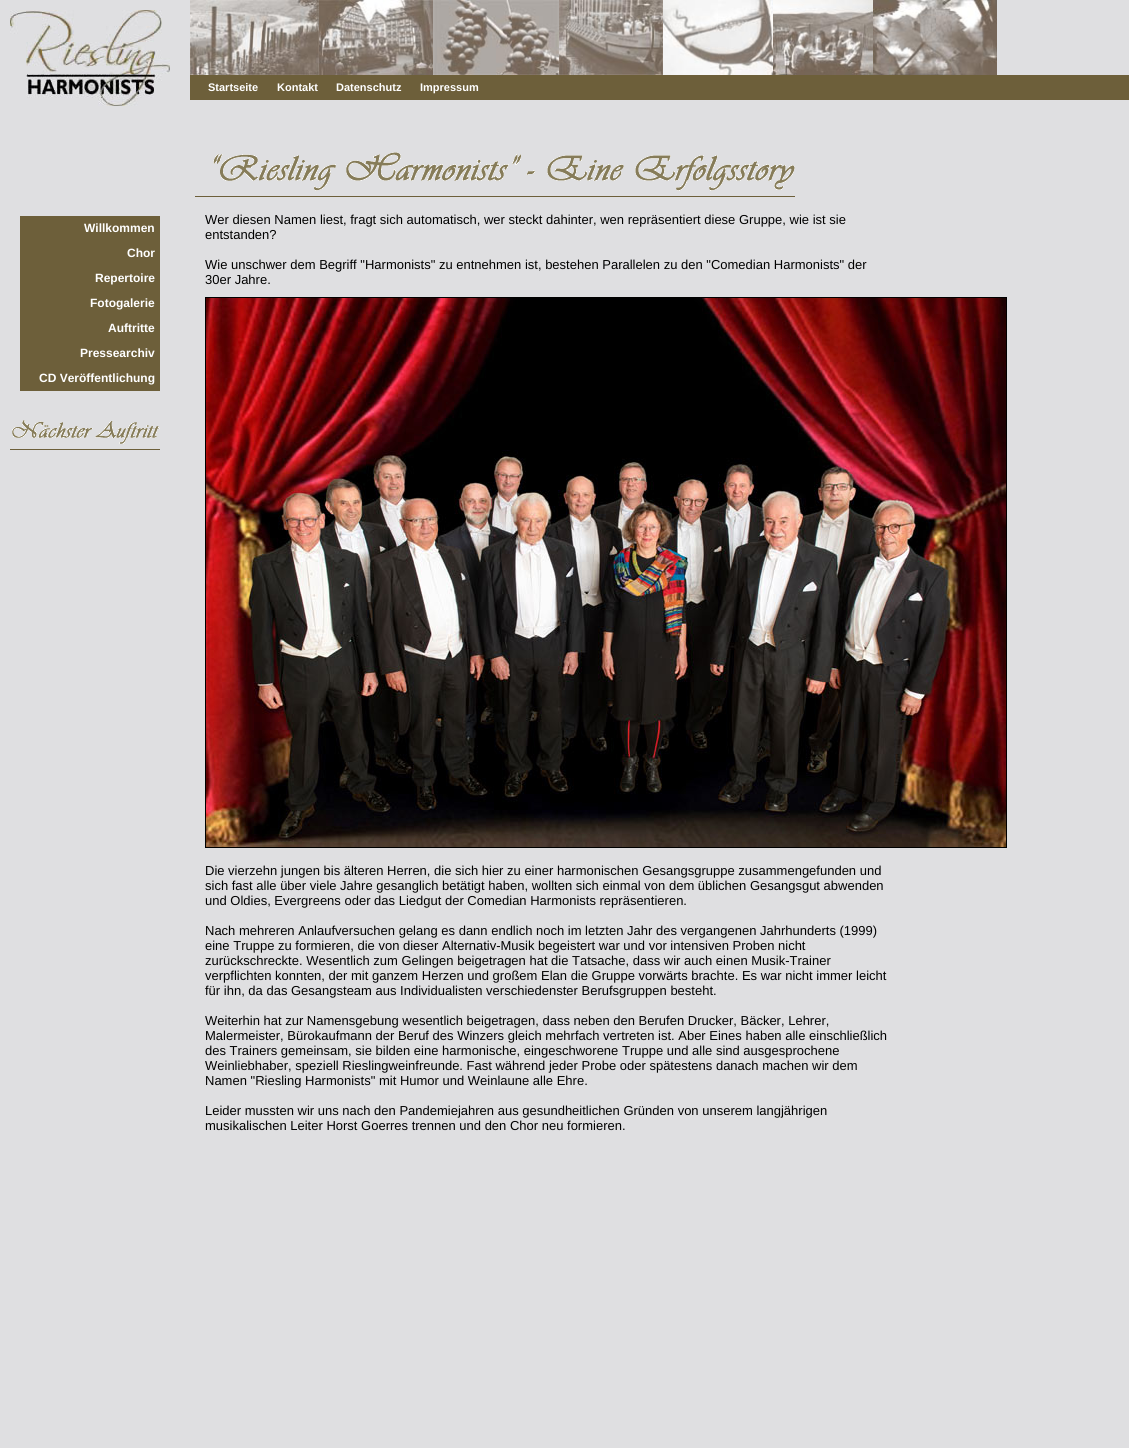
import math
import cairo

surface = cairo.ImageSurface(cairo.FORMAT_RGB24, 1129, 1448)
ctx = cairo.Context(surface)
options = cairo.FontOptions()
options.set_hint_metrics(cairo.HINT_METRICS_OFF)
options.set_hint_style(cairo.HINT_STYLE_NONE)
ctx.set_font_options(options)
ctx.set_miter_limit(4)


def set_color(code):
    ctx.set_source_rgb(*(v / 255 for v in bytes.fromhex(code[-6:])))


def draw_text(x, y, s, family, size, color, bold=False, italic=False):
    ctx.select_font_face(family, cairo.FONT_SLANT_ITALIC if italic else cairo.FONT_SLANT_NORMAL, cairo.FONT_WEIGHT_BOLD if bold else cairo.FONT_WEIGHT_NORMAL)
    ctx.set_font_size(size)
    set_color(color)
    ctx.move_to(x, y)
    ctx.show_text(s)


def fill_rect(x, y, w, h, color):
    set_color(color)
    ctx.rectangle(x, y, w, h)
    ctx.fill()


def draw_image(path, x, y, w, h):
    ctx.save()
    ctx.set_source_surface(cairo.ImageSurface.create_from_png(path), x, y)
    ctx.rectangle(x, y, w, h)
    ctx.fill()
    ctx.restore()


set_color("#dfdfe1")
ctx.paint()
draw_image("assets/img1.png", 10, 10, 160, 96)
draw_image("assets/img2.png", 190, 0, 129, 75)
draw_image("assets/img3.png", 319, 0, 114, 75)
draw_image("assets/img4.png", 433, 0, 126, 75)
draw_image("assets/img5.png", 559, 0, 104, 75)
draw_image("assets/img6.png", 663, 0, 110, 75)
draw_image("assets/img7.png", 773, 0, 100, 75)
draw_image("assets/img8.png", 873, 0, 124, 75)
fill_rect(190, 75, 939, 25, "#6d5f3a")
draw_text(208, 91, "Startseite", "Liberation Sans", 11, "#ffffff", bold=True)
draw_text(277, 91, "Kontakt", "Liberation Sans", 11, "#ffffff", bold=True)
draw_text(336, 91, "Datenschutz", "Liberation Sans", 11, "#ffffff", bold=True)
draw_text(420, 91, "Impressum", "Liberation Sans", 11, "#ffffff", bold=True)
fill_rect(20, 216, 140, 175, "#6d5f3a")
draw_text(84, 232, "Willkommen", "Liberation Sans", 12, "#ffffff", bold=True)
draw_text(127, 257, "Chor", "Liberation Sans", 12, "#ffffff", bold=True)
draw_text(95, 282, "Repertoire", "Liberation Sans", 12, "#ffffff", bold=True)
draw_text(90, 307, "Fotogalerie", "Liberation Sans", 12, "#ffffff", bold=True)
draw_text(108, 332, "Auftritte", "Liberation Sans", 12, "#ffffff", bold=True)
draw_text(80, 357, "Pressearchiv", "Liberation Sans", 12, "#ffffff", bold=True)
draw_text(39, 382, "CD Veröffentlichung", "Liberation Sans", 12, "#ffffff", bold=True)
draw_image("assets/img9.png", 12, 420, 148, 24)
fill_rect(10, 449, 150, 1, "#6d5f3a")
draw_image("assets/img10.png", 213, 152, 582, 39)
fill_rect(195, 196, 600, 1, "#6d5f3a")
draw_text(205, 224, "Wer diesen Namen liest, fragt sich automatisch, wer steckt dahinter, wen repräsentiert diese Gruppe, wie ist sie", "Liberation Sans", 13, "#000000")
draw_text(205, 239, "entstanden?", "Liberation Sans", 13, "#000000")
draw_text(205, 269, "Wie unschwer dem Begriff \"Harmonists\" zu entnehmen ist, bestehen Parallelen zu den \"Comedian Harmonists\" der", "Liberation Sans", 13, "#000000")
draw_text(205, 284, "30er Jahre.", "Liberation Sans", 13, "#000000")
ctx.rectangle(205.5, 297.5, 801, 550)
ctx.set_line_width(1)
ctx.stroke()
draw_image("assets/img11.png", 206, 298, 800, 549)
draw_text(205, 875, "Die vierzehn jungen bis älteren Herren, die sich hier zu einer harmonischen Gesangsgruppe zusammengefunden und", "Liberation Sans", 13, "#000000")
draw_text(205, 890, "sich fast alle über viele Jahre gesanglich betätigt haben, wollten sich einmal von dem üblichen Gesangsgut abwenden", "Liberation Sans", 13, "#000000")
draw_text(205, 905, "und Oldies, Evergreens oder das Liedgut der Comedian Harmonists repräsentieren.", "Liberation Sans", 13, "#000000")
draw_text(205, 935, "Nach mehreren Anlaufversuchen gelang es dann endlich noch im letzten Jahr des vergangenen Jahrhunderts (1999)", "Liberation Sans", 13, "#000000")
draw_text(205, 950, "eine Truppe zu formieren, die von dieser Alternativ-Musik begeistert war und vor intensiven Proben nicht", "Liberation Sans", 13, "#000000")
draw_text(205, 965, "zurückschreckte. Wesentlich zum Gelingen beigetragen hat die Tatsache, dass wir auch einen Musik-Trainer", "Liberation Sans", 13, "#000000")
draw_text(205, 980, "verpflichten konnten, der mit ganzem Herzen und großem Elan die Gruppe vorwärts brachte. Es war nicht immer leicht", "Liberation Sans", 13, "#000000")
draw_text(205, 995, "für ihn, da das Gesangsteam aus Individualisten verschiedenster Berufsgruppen besteht.", "Liberation Sans", 13, "#000000")
draw_text(205, 1025, "Weiterhin hat zur Namensgebung wesentlich beigetragen, dass neben den Berufen Drucker, Bäcker, Lehrer,", "Liberation Sans", 13, "#000000")
draw_text(205, 1040, "Malermeister, Bürokaufmann der Beruf des Winzers gleich mehrfach vertreten ist. Aber Eines haben alle einschließlich", "Liberation Sans", 13, "#000000")
draw_text(205, 1055, "des Trainers gemeinsam, sie bilden eine harmonische, eingeschworene Truppe und alle sind ausgesprochene", "Liberation Sans", 13, "#000000")
draw_text(205, 1070, "Weinliebhaber, speziell Rieslingweinfreunde. Fast während jeder Probe oder spätestens danach machen wir dem", "Liberation Sans", 13, "#000000")
draw_text(205, 1085, "Namen \"Riesling Harmonists\" mit Humor und Weinlaune alle Ehre.", "Liberation Sans", 13, "#000000")
draw_text(205, 1115, "Leider mussten wir uns nach den Pandemiejahren aus gesundheitlichen Gründen von unserem langjährigen", "Liberation Sans", 13, "#000000")
draw_text(205, 1130, "musikalischen Leiter Horst Goerres trennen und den Chor neu formieren.", "Liberation Sans", 13, "#000000")
surface.write_to_png("output.png")
